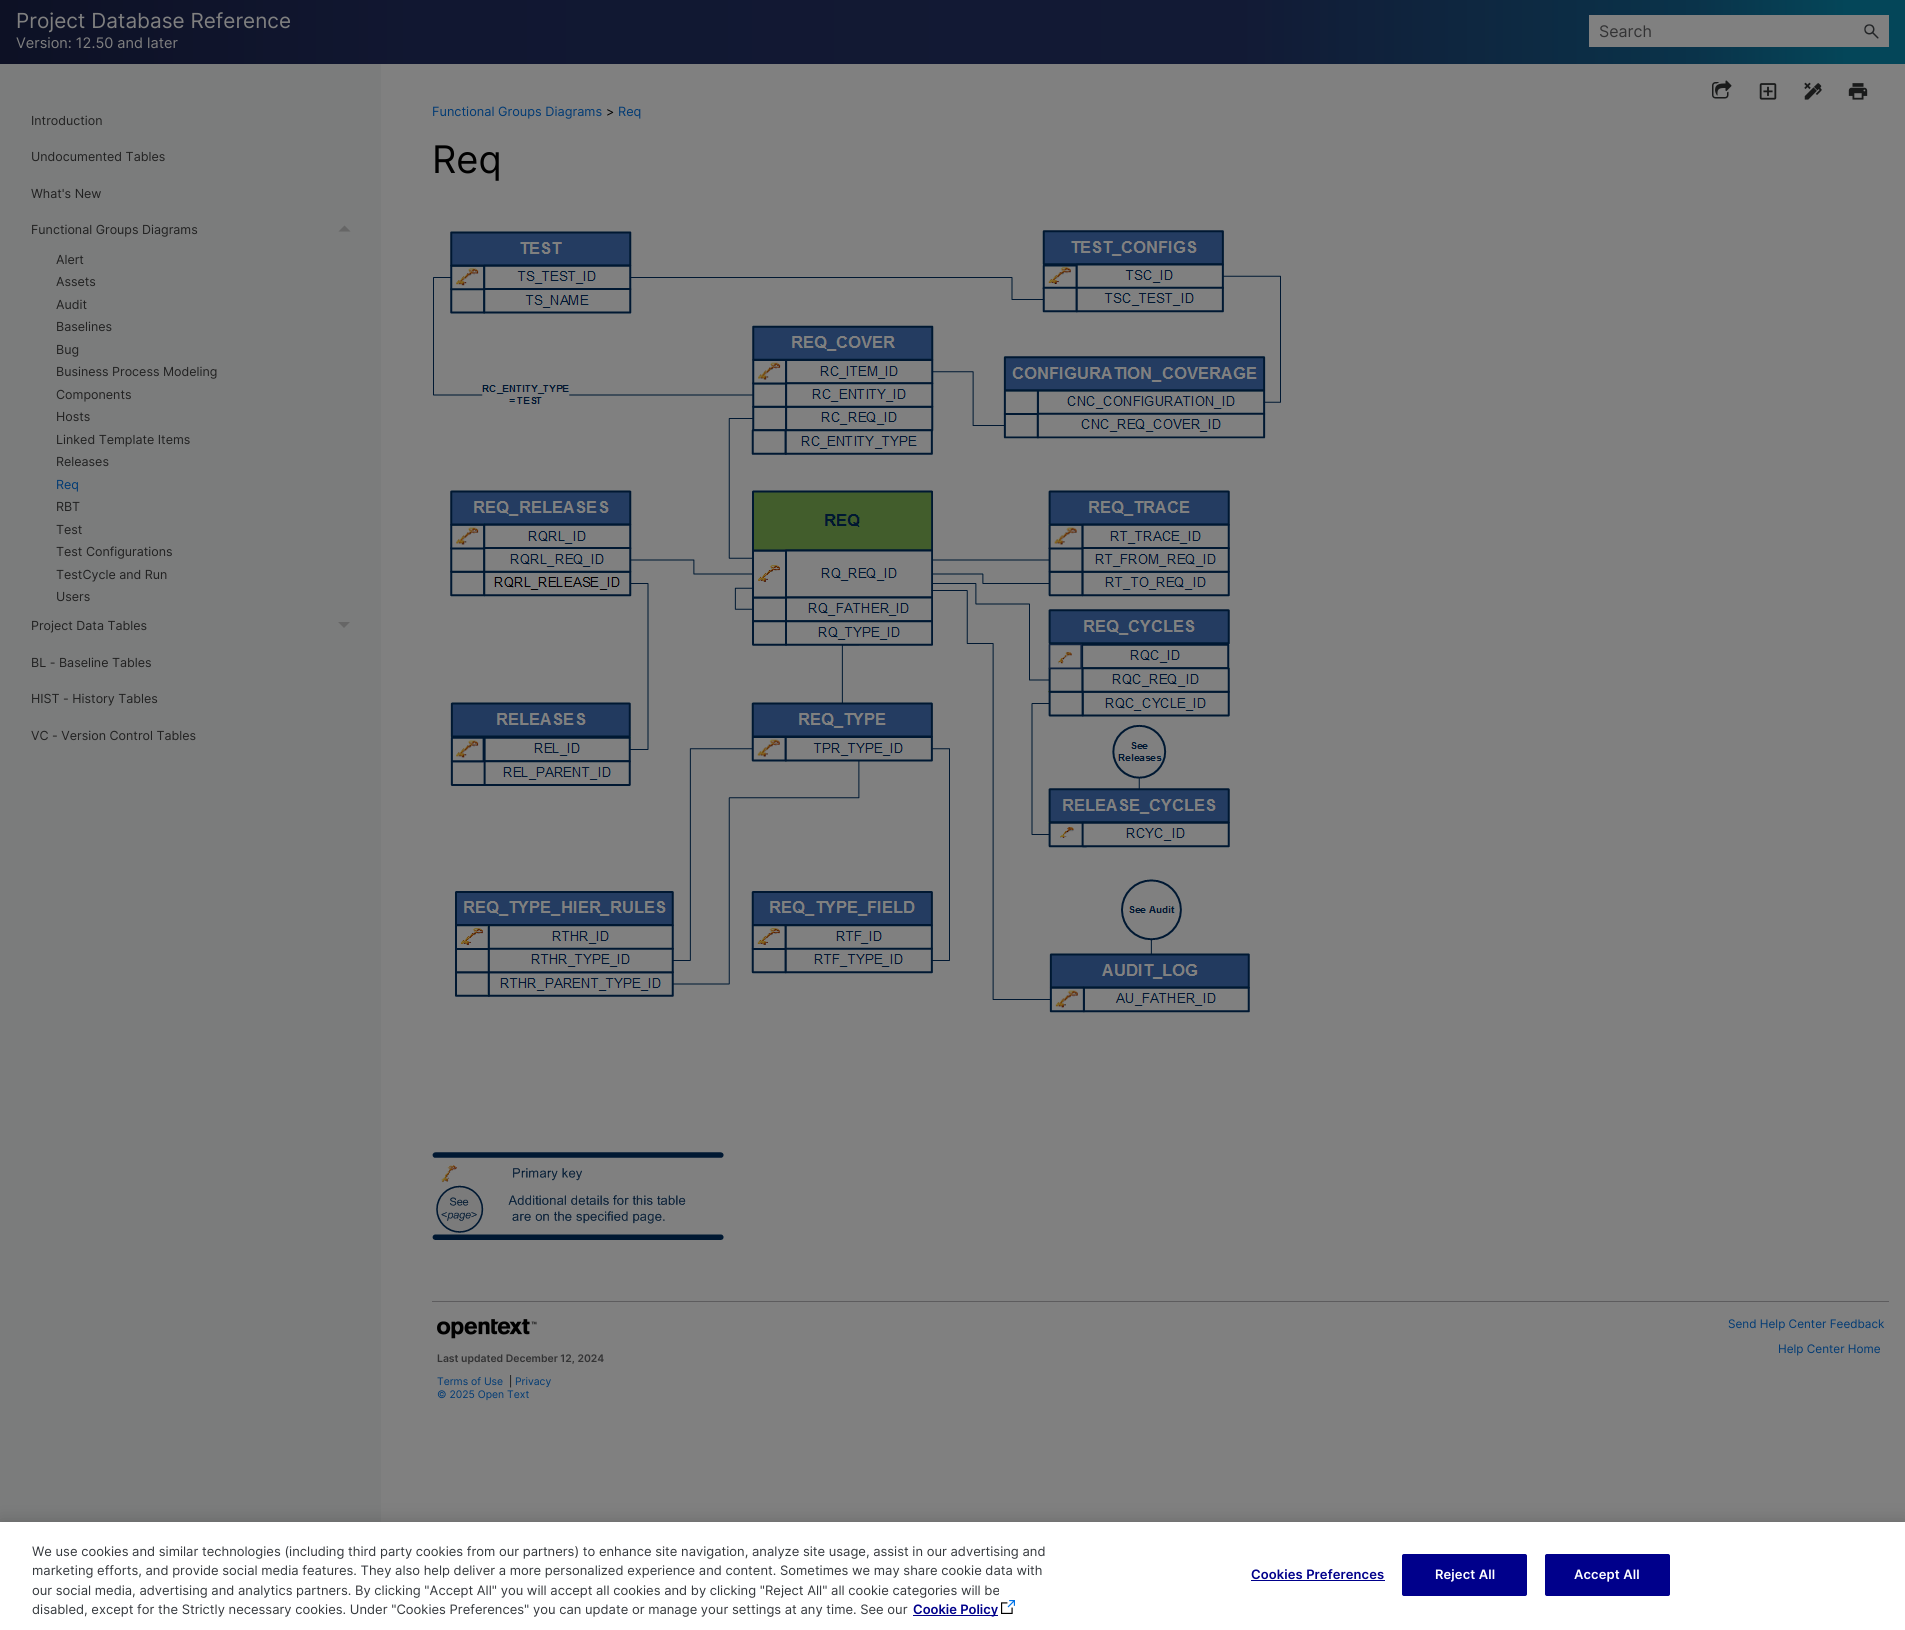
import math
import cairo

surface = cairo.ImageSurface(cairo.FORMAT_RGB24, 1905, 1630)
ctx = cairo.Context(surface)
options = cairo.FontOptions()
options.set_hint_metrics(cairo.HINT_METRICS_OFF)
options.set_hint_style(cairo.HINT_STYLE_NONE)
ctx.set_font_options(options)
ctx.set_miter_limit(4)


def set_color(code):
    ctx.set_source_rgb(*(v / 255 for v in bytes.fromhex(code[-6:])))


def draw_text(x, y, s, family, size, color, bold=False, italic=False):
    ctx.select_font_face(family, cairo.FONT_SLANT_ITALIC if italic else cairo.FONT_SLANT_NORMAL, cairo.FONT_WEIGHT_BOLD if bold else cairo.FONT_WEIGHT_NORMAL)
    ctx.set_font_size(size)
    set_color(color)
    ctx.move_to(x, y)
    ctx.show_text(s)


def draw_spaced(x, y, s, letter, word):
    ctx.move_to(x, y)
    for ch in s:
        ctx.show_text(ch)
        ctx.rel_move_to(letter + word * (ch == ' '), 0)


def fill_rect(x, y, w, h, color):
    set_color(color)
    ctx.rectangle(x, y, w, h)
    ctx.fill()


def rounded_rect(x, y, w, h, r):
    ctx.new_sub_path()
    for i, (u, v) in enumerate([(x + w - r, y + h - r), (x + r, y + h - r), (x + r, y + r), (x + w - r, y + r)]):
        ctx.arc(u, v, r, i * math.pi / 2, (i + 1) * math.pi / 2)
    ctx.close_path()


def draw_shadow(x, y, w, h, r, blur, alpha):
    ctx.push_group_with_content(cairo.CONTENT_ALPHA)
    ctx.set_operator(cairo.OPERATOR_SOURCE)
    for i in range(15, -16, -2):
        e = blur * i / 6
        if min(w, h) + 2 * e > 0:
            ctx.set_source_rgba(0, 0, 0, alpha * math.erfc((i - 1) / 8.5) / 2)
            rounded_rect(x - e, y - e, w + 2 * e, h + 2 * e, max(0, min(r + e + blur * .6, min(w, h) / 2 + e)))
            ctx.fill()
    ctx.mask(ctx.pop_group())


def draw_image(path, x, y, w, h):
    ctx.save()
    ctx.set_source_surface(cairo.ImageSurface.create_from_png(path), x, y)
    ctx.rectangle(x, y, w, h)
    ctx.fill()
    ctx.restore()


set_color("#808080")
ctx.paint()
gradient = cairo.LinearGradient(0, 32, 1905, 32)
gradient.add_color_stop_rgba(0, 0.051, 0.067, 0.145, 1)
gradient.add_color_stop_rgba(0.22, 0.067, 0.09, 0.192, 1)
gradient.add_color_stop_rgba(0.65, 0.071, 0.102, 0.208, 1)
gradient.add_color_stop_rgba(0.89, 0.039, 0.2, 0.29, 1)
gradient.add_color_stop_rgba(0.97, 0.016, 0.275, 0.349, 1)
ctx.set_source(gradient)
ctx.rectangle(0, 0, 1905, 64)
ctx.fill()
draw_text(16, 28, "Project Database Reference", "Inter", 20.75, "#808080")
draw_text(16, 48, "Version: 12.50 and later", "Inter", 14.5, "#808080")
fill_rect(1589, 15, 300, 32, "#808080")
draw_text(1599, 37, "Search", "Inter", 16, "#333334")
draw_image("assets/img1.png", 1864, 24, 15, 15)
fill_rect(0, 64, 381, 1458, "#7b7c7c")
draw_text(31, 125, "Introduction", "Inter", 12.5, "#212121")
draw_text(31, 161, "Undocumented Tables", "Inter", 12.5, "#212121")
draw_text(31, 198, "What's New", "Inter", 12.5, "#212121")
draw_text(31, 234, "Functional Groups Diagrams", "Inter", 12.5, "#212121")
set_color("#666666")
ctx.new_path()
ctx.move_to(338.5, 231.5)
ctx.line_to(350.5, 231.5)
ctx.line_to(344.5, 225.5)
ctx.close_path()
ctx.fill()
draw_text(56, 264, "Alert", "Inter", 12.5, "#212121")
draw_text(56, 286, "Assets", "Inter", 12.5, "#212121")
draw_text(56, 309, "Audit", "Inter", 12.5, "#212121")
draw_text(56, 331, "Baselines", "Inter", 12.5, "#212121")
draw_text(56, 354, "Bug", "Inter", 12.5, "#212121")
draw_text(56, 376, "Business Process Modeling", "Inter", 12.5, "#212121")
draw_text(56, 399, "Components", "Inter", 12.5, "#212121")
draw_text(56, 421, "Hosts", "Inter", 12.5, "#212121")
draw_text(56, 444, "Linked Template Items", "Inter", 12.5, "#212121")
draw_text(56, 466, "Releases", "Inter", 12.5, "#212121")
draw_text(56, 489, "Req", "Inter", 12.5, "#003a74")
draw_text(56, 511, "RBT", "Inter", 12.5, "#212121")
draw_text(56, 534, "Test", "Inter", 12.5, "#212121")
draw_text(56, 556, "Test Configurations", "Inter", 12.5, "#212121")
draw_text(56, 579, "TestCycle and Run", "Inter", 12.5, "#212121")
draw_text(56, 601, "Users", "Inter", 12.5, "#212121")
draw_text(31, 630, "Project Data Tables", "Inter", 12.5, "#212121")
set_color("#666666")
ctx.new_path()
ctx.move_to(338, 622)
ctx.line_to(350, 622)
ctx.line_to(344, 628)
ctx.close_path()
ctx.fill()
draw_text(31, 667, "BL - Baseline Tables", "Inter", 12.5, "#212121")
draw_text(31, 703, "HIST - History Tables", "Inter", 12.5, "#212121")
draw_text(31, 740, "VC - Version Control Tables", "Inter", 12.5, "#212121")
draw_image("assets/img2.png", 1712, 80, 20, 19)
draw_image("assets/img3.png", 1759, 83, 18, 17)
draw_image("assets/img4.png", 1804, 82, 18, 18)
draw_image("assets/img5.png", 1848, 83, 20, 17)
draw_text(432, 116, "Functional Groups Diagrams", "Inter", 12.75, "#003a74")
draw_text(606, 116, ">", "Inter", 12.75, "#000000")
draw_text(618, 116, "Req", "Inter", 12.75, "#003a74")
draw_text(432, 173, "Req", "Inter", 38, "#000000")
draw_image("assets/img6.png", 433, 230, 848, 783)
draw_image("assets/img7.png", 432, 1152, 292, 88)
fill_rect(432, 1301, 1457, 1, "#5d5c5e")
draw_text(1728, 1328, "Send Help Center Feedback", "Inter", 11.75, "#003a74")
draw_text(1778, 1353, "Help Center Home", "Inter", 11.75, "#003a74")
draw_image("assets/img8.png", 437, 1319, 100, 20)
draw_text(437, 1362, "Last updated December 12, 2024", "Inter SemiBold", 10.4, "#333334")
draw_text(437, 1385, "Terms of Use", "Inter", 10.4, "#003a74")
draw_text(509, 1385, "|", "Inter", 10.4, "#000000")
draw_text(515, 1385, "Privacy", "Inter", 10.4, "#003a74")
draw_text(437, 1398, "© 2025 Open Text", "Inter", 10.4, "#003a74")
set_color("#000000")
draw_shadow(0, 1522, 1905, 108, 0, 9, 0.2)
fill_rect(0, 1522, 1905, 108, "#ffffff")
draw_text(32, 1556, "We use cookies and similar technologies (including third party cookies from our partners) to enhance site navigation, analyze site usage, assist in our advertising and", "Inter", 13, "#35393d")
draw_text(32, 1575, "marketing efforts, and provide social media features. They also help deliver a more personalized experience and content. Sometimes we may share cookie data with", "Inter", 13, "#35393d")
draw_text(32, 1595, "our social media, advertising and analytics partners. By clicking \"Accept All\" you will accept all cookies and by clicking \"Reject All\" all cookie categories will be", "Inter", 13, "#35393d")
draw_text(32, 1614, "disabled, except for the Strictly necessary cookies. Under \"Cookies Preferences\" you can update or manage your settings at any time. See our", "Inter", 13, "#35393d")
fill_rect(913, 1615, 85, 1, "#00008b")
draw_text(913, 1614, "Cookie Policy", "Inter SemiBold", 13, "#00008b")
draw_image("assets/img9.png", 1001, 1600, 14, 14)
draw_spaced(1251, 1579, "Cookies Preferences", 0.1, 0)
fill_rect(1251, 1580, 134, 1, "#00008b")
rounded_rect(1402.5, 1554.5, 124, 41, 1.5)
ctx.fill_preserve()
ctx.set_line_width(1)
ctx.stroke()
set_color("#ffffff")
draw_spaced(1435, 1579, "Reject All", 0.1, 0)
set_color("#00008b")
rounded_rect(1545.5, 1554.5, 124, 41, 1.5)
ctx.fill_preserve()
ctx.stroke()
set_color("#ffffff")
draw_spaced(1574, 1579, "Accept All", 0.1, 0)
surface.write_to_png("output.png")
